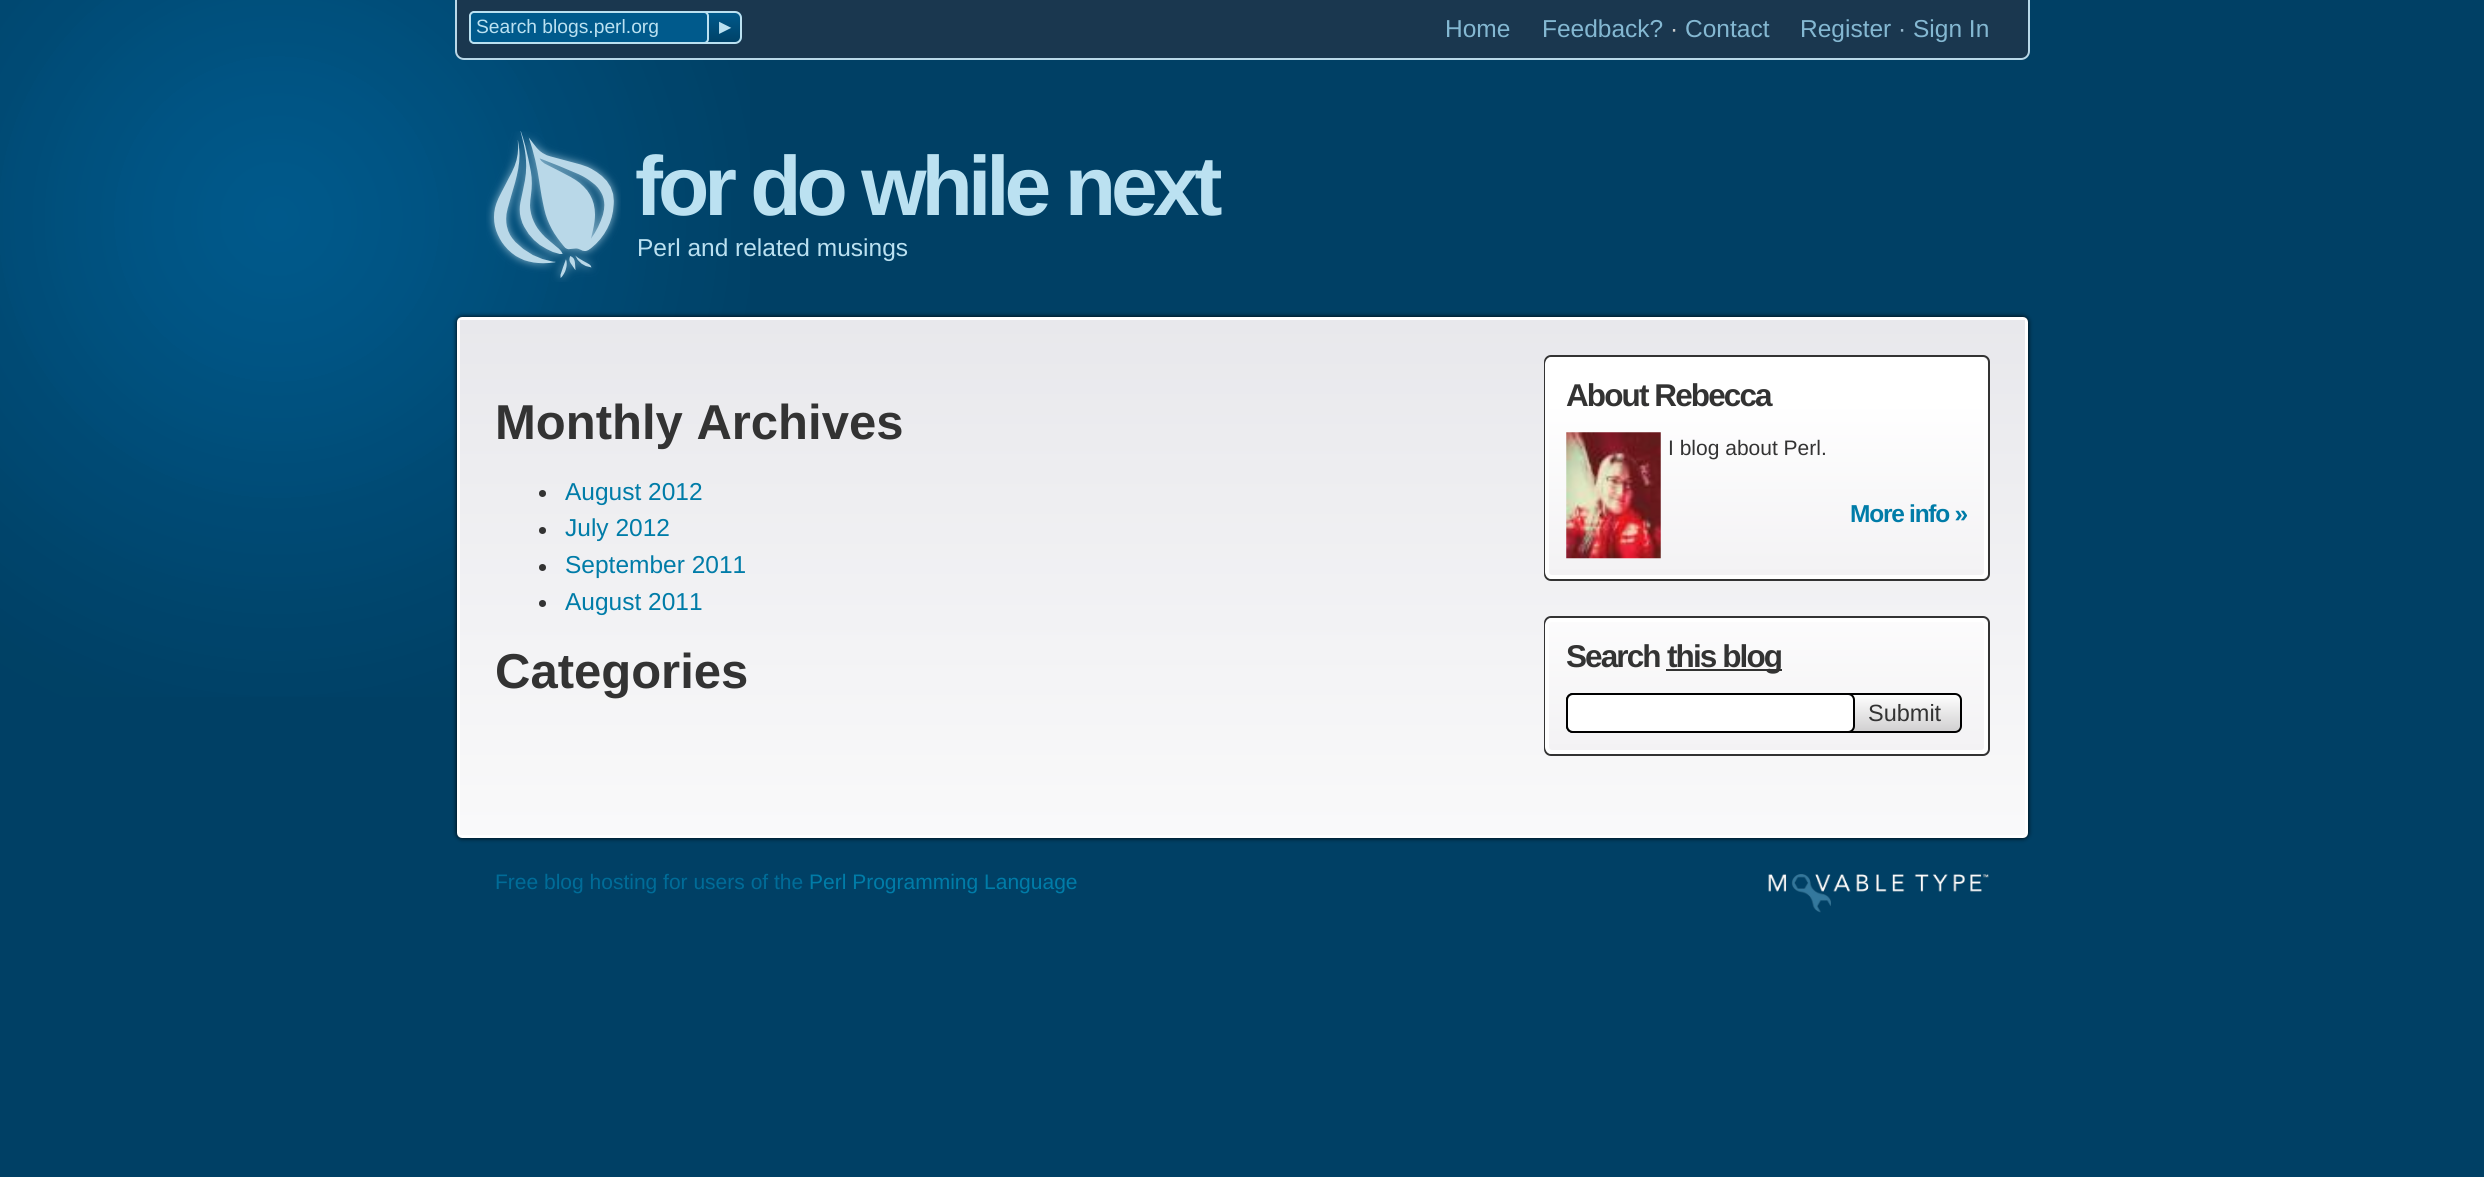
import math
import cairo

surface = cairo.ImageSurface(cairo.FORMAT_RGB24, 2484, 1177)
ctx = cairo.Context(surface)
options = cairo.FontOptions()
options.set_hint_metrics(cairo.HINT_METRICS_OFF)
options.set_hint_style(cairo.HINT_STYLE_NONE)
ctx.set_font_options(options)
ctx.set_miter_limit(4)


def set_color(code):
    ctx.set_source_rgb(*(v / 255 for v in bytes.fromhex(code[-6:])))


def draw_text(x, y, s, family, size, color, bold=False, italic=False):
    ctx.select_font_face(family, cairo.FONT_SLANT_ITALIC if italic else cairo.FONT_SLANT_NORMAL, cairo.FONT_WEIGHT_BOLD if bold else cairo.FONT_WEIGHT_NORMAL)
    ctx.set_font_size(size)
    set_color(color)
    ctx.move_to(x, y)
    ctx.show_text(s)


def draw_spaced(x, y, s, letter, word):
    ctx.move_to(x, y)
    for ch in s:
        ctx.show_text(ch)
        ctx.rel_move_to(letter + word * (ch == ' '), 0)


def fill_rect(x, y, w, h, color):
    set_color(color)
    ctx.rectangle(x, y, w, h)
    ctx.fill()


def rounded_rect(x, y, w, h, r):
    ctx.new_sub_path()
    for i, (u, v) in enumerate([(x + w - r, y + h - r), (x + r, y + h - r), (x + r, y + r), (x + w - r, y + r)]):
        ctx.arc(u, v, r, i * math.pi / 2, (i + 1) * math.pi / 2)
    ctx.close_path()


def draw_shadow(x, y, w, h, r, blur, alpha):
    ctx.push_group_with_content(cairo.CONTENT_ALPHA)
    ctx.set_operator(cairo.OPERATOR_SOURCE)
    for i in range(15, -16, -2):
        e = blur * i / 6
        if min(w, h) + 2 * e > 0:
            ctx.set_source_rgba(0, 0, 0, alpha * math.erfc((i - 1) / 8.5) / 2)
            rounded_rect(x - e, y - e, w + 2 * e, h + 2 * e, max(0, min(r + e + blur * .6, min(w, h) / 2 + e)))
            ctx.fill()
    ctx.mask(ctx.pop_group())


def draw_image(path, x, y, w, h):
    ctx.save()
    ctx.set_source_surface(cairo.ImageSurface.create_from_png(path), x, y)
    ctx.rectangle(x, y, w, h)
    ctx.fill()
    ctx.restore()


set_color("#004065")
ctx.paint()
gradient = cairo.RadialGradient(277, 219, 0, 277, 219, 2324)
gradient.add_color_stop_rgba(0, 0, 0.349, 0.545, 1)
gradient.add_color_stop_rgba(0.02, 0, 0.345, 0.537, 1)
gradient.add_color_stop_rgba(0.03, 0, 0.341, 0.533, 1)
gradient.add_color_stop_rgba(0.04, 0, 0.337, 0.525, 1)
gradient.add_color_stop_rgba(0.05, 0, 0.333, 0.522, 1)
gradient.add_color_stop_rgba(0.06, 0, 0.329, 0.514, 1)
gradient.add_color_stop_rgba(0.07, 0, 0.325, 0.51, 1)
gradient.add_color_stop_rgba(0.07, 0, 0.322, 0.502, 1)
gradient.add_color_stop_rgba(0.08, 0, 0.318, 0.498, 1)
gradient.add_color_stop_rgba(0.09, 0, 0.314, 0.49, 1)
gradient.add_color_stop_rgba(0.1, 0, 0.31, 0.482, 1)
gradient.add_color_stop_rgba(0.1, 0, 0.306, 0.478, 1)
gradient.add_color_stop_rgba(0.11, 0, 0.302, 0.475, 1)
gradient.add_color_stop_rgba(0.12, 0, 0.298, 0.467, 1)
gradient.add_color_stop_rgba(0.12, 0, 0.294, 0.459, 1)
gradient.add_color_stop_rgba(0.13, 0, 0.29, 0.455, 1)
gradient.add_color_stop_rgba(0.14, 0, 0.286, 0.451, 1)
gradient.add_color_stop_rgba(0.14, 0, 0.286, 0.447, 1)
gradient.add_color_stop_rgba(0.15, 0, 0.282, 0.443, 1)
gradient.add_color_stop_rgba(0.16, 0, 0.278, 0.435, 1)
gradient.add_color_stop_rgba(0.16, 0, 0.275, 0.431, 1)
gradient.add_color_stop_rgba(0.17, 0, 0.275, 0.427, 1)
gradient.add_color_stop_rgba(0.17, 0, 0.271, 0.424, 1)
gradient.add_color_stop_rgba(0.18, 0, 0.267, 0.42, 1)
gradient.add_color_stop_rgba(0.19, 0, 0.267, 0.416, 1)
gradient.add_color_stop_rgba(0.19, 0, 0.263, 0.412, 1)
gradient.add_color_stop_rgba(0.2, 0, 0.259, 0.408, 1)
gradient.add_color_stop_rgba(0.21, 0, 0.255, 0.404, 1)
gradient.add_color_stop_rgba(0.21, 0, 0.255, 0.4, 1)
gradient.add_color_stop_rgba(0.22, 0, 0.255, 0.396, 1)
gradient.add_color_stop_rgba(0.23, 0, 0.251, 0.396, 1)
ctx.set_source(gradient)
ctx.rectangle(0, 0, 750, 697)
ctx.fill()
set_color("#1a374f")
ctx.new_path()
ctx.move_to(455, 0)
ctx.line_to(2030, 0)
ctx.line_to(2030, 51)
ctx.curve_to(2030, 56, 2026, 60, 2021, 60)
ctx.line_to(464, 60)
ctx.curve_to(459, 60, 455, 56, 455, 51)
ctx.close_path()
ctx.fill()
set_color("#b9d8e8")
ctx.set_fill_rule(cairo.FILL_RULE_EVEN_ODD)
ctx.new_path()
ctx.move_to(455, 0)
ctx.line_to(2030, 0)
ctx.line_to(2030, 51)
ctx.curve_to(2030, 56, 2026, 60, 2021, 60)
ctx.line_to(464, 60)
ctx.curve_to(459, 60, 455, 56, 455, 51)
ctx.close_path()
ctx.move_to(457, 0)
ctx.line_to(2028, 0)
ctx.line_to(2028, 51)
ctx.curve_to(2028, 55, 2025, 58, 2021, 58)
ctx.line_to(464, 58)
ctx.curve_to(460, 58, 457, 55, 457, 51)
ctx.close_path()
ctx.fill()
ctx.save()
ctx.set_fill_rule(cairo.FILL_RULE_WINDING)
rounded_rect(469, 11, 273, 33, 7)
ctx.clip()
gradient = cairo.LinearGradient(606, 12, 606, 42)
gradient.add_color_stop_rgba(0, 0, 0.353, 0.549, 1)
gradient.add_color_stop_rgba(1, 0, 0.259, 0.408, 1)
ctx.set_source(gradient)
ctx.rectangle(469, 12, 273, 30)
ctx.fill()
ctx.restore()
rounded_rect(470, 12, 271, 31, 6)
set_color("#bbe1f1")
ctx.stroke()
set_color("#005a8c")
rounded_rect(470, 12, 238, 31, 4)
ctx.fill_preserve()
set_color("#bbe1f1")
ctx.stroke()
draw_text(476, 33, "Search blogs.perl.org", "Liberation Sans", 19.25, "#bbe1f1")
draw_text(719, 32, "▶", "DejaVu Sans", 16, "#bbe1f1")
draw_text(1445, 37, "Home", "Liberation Sans", 24.5, "#84b8d2")
draw_text(1542, 37, "Feedback?", "Liberation Sans", 24.5, "#84b8d2")
draw_text(1670, 37, "·", "Liberation Sans", 24.5, "#cccccc")
draw_text(1685, 37, "Contact", "Liberation Sans", 24.5, "#84b8d2")
draw_text(1800, 37, "Register", "Liberation Sans", 24.5, "#84b8d2")
draw_text(1898, 37, "·", "Liberation Sans", 24.5, "#97b8cc")
draw_text(1913, 37, "Sign In", "Liberation Sans", 24.5, "#84b8d2")
draw_image("assets/img1.png", 486, 131, 135, 151)
ctx.select_font_face("Liberation Sans", cairo.FONT_SLANT_NORMAL, cairo.FONT_WEIGHT_BOLD)
ctx.set_font_size(84)
set_color("#bbe1f1")
draw_spaced(635, 215, "for do while next", -5, 0)
draw_text(637, 256, "Perl and related musings", "Liberation Sans", 24.5, "#bbe1f1")
set_color("#000000")
draw_shadow(457, 317, 1571, 521, 5, 2.5, 1)
rounded_rect(459, 319, 1567, 517, 3)
set_color("#ffffff")
ctx.set_line_width(4)
ctx.stroke()
gradient = cairo.LinearGradient(1243, 320, 1243, 1011)
gradient.add_color_stop_rgba(0, 0.91, 0.91, 0.925, 1)
gradient.add_color_stop_rgba(1, 1, 1, 1, 1)
ctx.set_source(gradient)
ctx.rectangle(460, 320, 1565, 515)
ctx.fill()
draw_text(495, 439, "Monthly Archives", "Liberation Sans", 49, "#333333", bold=True)
ctx.new_path()
ctx.arc(542.5, 493.5, 3.5, 0, 2 * math.pi)
ctx.fill()
draw_text(565, 500, "August 2012", "Liberation Sans", 24.5, "#007ca8")
set_color("#333333")
ctx.new_path()
ctx.arc(542.5, 530.5, 3.5, 0, 2 * math.pi)
ctx.fill()
draw_text(565, 536, "July 2012", "Liberation Sans", 24.5, "#007ca8")
set_color("#333333")
ctx.new_path()
ctx.arc(542.5, 567.5, 3.5, 0, 2 * math.pi)
ctx.fill()
draw_text(565, 573, "September 2011", "Liberation Sans", 24.5, "#007ca8")
set_color("#333333")
ctx.new_path()
ctx.arc(542.5, 603.5, 3.5, 0, 2 * math.pi)
ctx.fill()
draw_text(565, 610, "August 2011", "Liberation Sans", 24.5, "#007ca8")
draw_text(495, 688, "Categories", "Liberation Sans", 49, "#333333", bold=True)
rounded_rect(1545, 356, 444, 224, 6)
ctx.set_line_width(2)
ctx.stroke()
gradient = cairo.LinearGradient(1767, 576, 1767, 361)
gradient.add_color_stop_rgba(0, 0.953, 0.949, 0.957, 1)
gradient.add_color_stop_rgba(0.81, 1, 1, 1, 1)
gradient.add_color_stop_rgba(1, 1, 1, 1, 1)
ctx.set_source(gradient)
ctx.rectangle(1549, 361, 435, 214)
ctx.fill()
rounded_rect(1547, 359, 439, 218, 5)
set_color("#ffffff")
ctx.set_line_width(4)
ctx.stroke()
ctx.set_font_size(31.5)
set_color("#333333")
draw_spaced(1566, 406, "About Rebecca", -1.9, 0)
draw_image("assets/img2.png", 1566, 432, 95, 127)
draw_text(1668, 455, "I blog about Perl.", "Liberation Sans", 21, "#333333")
ctx.select_font_face("Liberation Sans", cairo.FONT_SLANT_NORMAL, cairo.FONT_WEIGHT_BOLD)
ctx.set_font_size(24.5)
set_color("#007ca8")
draw_spaced(1850, 522, "More info »", -1.25, 0)
rounded_rect(1545, 617, 444, 138, 6)
set_color("#333333")
ctx.set_line_width(2)
ctx.stroke()
gradient = cairo.LinearGradient(1767, 751, 1767, 576)
gradient.add_color_stop_rgba(0, 0.953, 0.949, 0.957, 1)
gradient.add_color_stop_rgba(1, 1, 1, 1, 1)
ctx.set_source(gradient)
ctx.rectangle(1549, 622, 435, 128)
ctx.fill()
rounded_rect(1547, 620, 439, 132, 5)
set_color("#ffffff")
ctx.set_line_width(4)
ctx.stroke()
ctx.set_font_size(31.5)
set_color("#333333")
draw_spaced(1566, 667, "Search", -1.9, 0)
fill_rect(1666, 669, 116, 2, "#333333")
draw_spaced(1667, 667, "this blog", -1.9, 0)
gradient = cairo.LinearGradient(1764, 732, 1764, 695)
gradient.add_color_stop_rgba(0, 0.816, 0.812, 0.816, 1)
gradient.add_color_stop_rgba(1, 0.996, 0.996, 0.996, 1)
ctx.set_source(gradient)
ctx.rectangle(1568, 695, 392, 37)
ctx.fill()
rounded_rect(1567, 694, 394, 38, 6)
set_color("#000000")
ctx.set_line_width(2)
ctx.stroke()
set_color("#ffffff")
rounded_rect(1567, 694, 287, 38, 6)
ctx.fill_preserve()
set_color("#000000")
ctx.stroke()
draw_text(1868, 721, "Submit", "Liberation Sans", 23.5, "#333333")
draw_text(495, 889, "Free blog hosting for users of the", "Liberation Sans", 21, "#006c98")
draw_text(809, 889, "Perl Programming Language", "Liberation Sans", 21, "#007ca8")
draw_image("assets/img3.png", 1768, 874, 221, 39)
surface.write_to_png("output.png")
